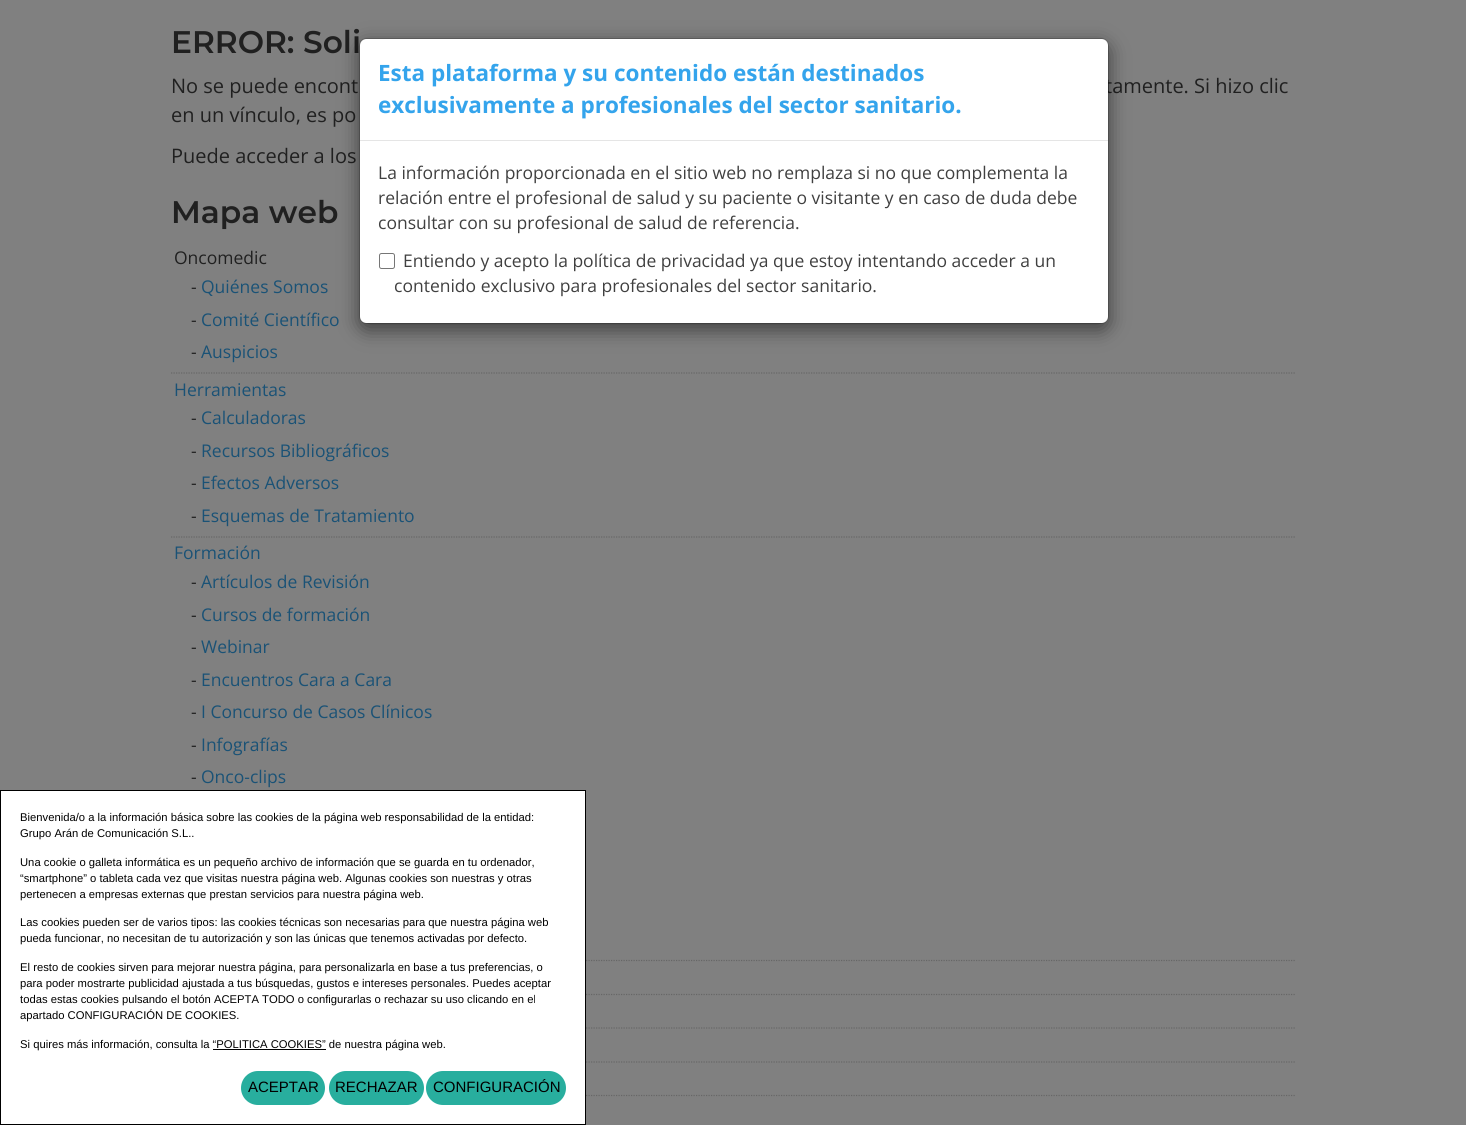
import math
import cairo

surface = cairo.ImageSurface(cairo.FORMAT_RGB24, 1466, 1125)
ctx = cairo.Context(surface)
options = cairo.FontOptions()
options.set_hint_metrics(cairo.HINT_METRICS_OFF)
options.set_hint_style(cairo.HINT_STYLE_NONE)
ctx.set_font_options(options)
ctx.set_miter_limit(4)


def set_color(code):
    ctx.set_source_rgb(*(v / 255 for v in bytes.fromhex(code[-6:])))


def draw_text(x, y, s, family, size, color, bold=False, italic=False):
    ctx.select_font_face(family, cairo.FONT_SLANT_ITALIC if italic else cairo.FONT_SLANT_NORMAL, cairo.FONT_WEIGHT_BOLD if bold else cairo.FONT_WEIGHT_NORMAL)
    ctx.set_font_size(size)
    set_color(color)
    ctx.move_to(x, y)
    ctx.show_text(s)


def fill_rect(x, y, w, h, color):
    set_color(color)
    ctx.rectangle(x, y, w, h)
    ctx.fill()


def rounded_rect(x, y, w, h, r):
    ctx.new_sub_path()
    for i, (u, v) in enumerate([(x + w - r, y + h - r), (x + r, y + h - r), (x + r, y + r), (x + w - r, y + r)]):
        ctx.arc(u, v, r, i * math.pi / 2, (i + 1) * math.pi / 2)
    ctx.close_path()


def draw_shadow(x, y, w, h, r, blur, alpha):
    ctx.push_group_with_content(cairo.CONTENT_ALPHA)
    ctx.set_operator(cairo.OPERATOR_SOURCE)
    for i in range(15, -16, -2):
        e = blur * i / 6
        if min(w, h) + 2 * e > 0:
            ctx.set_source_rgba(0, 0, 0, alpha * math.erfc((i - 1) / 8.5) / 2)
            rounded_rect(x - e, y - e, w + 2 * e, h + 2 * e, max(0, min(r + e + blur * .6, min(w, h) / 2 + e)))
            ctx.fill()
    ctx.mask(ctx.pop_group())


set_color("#808080")
ctx.paint()
draw_text(171, 53, "ERROR: Soli", "Montserrat SemiBold", 31.25, "#202020")
draw_text(171, 93, "No se puede encont", "Open Sans", 20, "#202020")
draw_text(1105, 93, "tamente. Si hizo clic", "Open Sans", 20, "#202020")
draw_text(171, 122, "en un vínculo, es po", "Open Sans", 20, "#202020")
draw_text(171, 163, "Puede acceder a los", "Open Sans", 20, "#202020")
draw_text(171, 223, "Mapa web", "Montserrat SemiBold", 31.25, "#202020")
ctx.new_path()
ctx.move_to(171, 373)
ctx.line_to(1296, 373)
set_color("#666666")
ctx.set_line_width(1.2)
ctx.set_dash([1.25, 1.25])
ctx.stroke()
draw_text(174, 264, "Oncomedic", "Open Sans", 17.5, "#202020")
draw_text(191, 293, "-", "Open Sans", 17.5, "#202020")
draw_text(201, 293, "Quiénes Somos", "Open Sans", 17.5, "#1a5276")
draw_text(191, 326, "-", "Open Sans", 17.5, "#202020")
draw_text(201, 326, "Comité Científico", "Open Sans", 17.5, "#1a5276")
draw_text(191, 358, "-", "Open Sans", 17.5, "#202020")
draw_text(201, 358, "Auspicios", "Open Sans", 17.5, "#1a5276")
ctx.new_path()
ctx.move_to(171, 537)
ctx.line_to(1296, 537)
set_color("#666666")
ctx.stroke()
draw_text(174, 396, "Herramientas", "Open Sans", 17.5, "#1a5276")
draw_text(191, 424, "-", "Open Sans", 17.5, "#202020")
draw_text(201, 424, "Calculadoras", "Open Sans", 17.5, "#1a5276")
draw_text(191, 457, "-", "Open Sans", 17.5, "#202020")
draw_text(201, 457, "Recursos Bibliográficos", "Open Sans", 17.5, "#1a5276")
draw_text(191, 489, "-", "Open Sans", 17.5, "#202020")
draw_text(201, 489, "Efectos Adversos", "Open Sans", 17.5, "#1a5276")
draw_text(191, 522, "-", "Open Sans", 17.5, "#202020")
draw_text(201, 522, "Esquemas de Tratamiento", "Open Sans", 17.5, "#1a5276")
ctx.new_path()
ctx.move_to(171, 960.5)
ctx.line_to(1296, 960.5)
set_color("#666666")
ctx.stroke()
draw_text(174, 559, "Formación", "Open Sans", 17.5, "#1a5276")
draw_text(191, 588, "-", "Open Sans", 17.5, "#202020")
draw_text(201, 588, "Artículos de Revisión", "Open Sans", 17.5, "#1a5276")
draw_text(191, 621, "-", "Open Sans", 17.5, "#202020")
draw_text(201, 621, "Cursos de formación", "Open Sans", 17.5, "#1a5276")
draw_text(191, 653, "-", "Open Sans", 17.5, "#202020")
draw_text(201, 653, "Webinar", "Open Sans", 17.5, "#1a5276")
draw_text(191, 686, "-", "Open Sans", 17.5, "#202020")
draw_text(201, 686, "Encuentros Cara a Cara", "Open Sans", 17.5, "#1a5276")
draw_text(191, 718, "-", "Open Sans", 17.5, "#202020")
draw_text(201, 718, "I Concurso de Casos Clínicos", "Open Sans", 17.5, "#1a5276")
draw_text(191, 751, "-", "Open Sans", 17.5, "#202020")
draw_text(201, 751, "Infografías", "Open Sans", 17.5, "#1a5276")
draw_text(191, 783, "-", "Open Sans", 17.5, "#202020")
draw_text(201, 783, "Onco-clips", "Open Sans", 17.5, "#1a5276")
ctx.new_path()
ctx.move_to(171, 994.5)
ctx.line_to(1296, 994.5)
set_color("#666666")
ctx.stroke()
ctx.new_path()
ctx.move_to(171, 1028)
ctx.line_to(1296, 1028)
ctx.stroke()
ctx.new_path()
ctx.move_to(171, 1062)
ctx.line_to(1296, 1062)
ctx.stroke()
ctx.new_path()
ctx.move_to(171, 1095.5)
ctx.line_to(1296, 1095.5)
ctx.stroke()
set_color("#000000")
draw_shadow(359, 44, 750, 286, 8, 9.5, 0.5)
set_color("#ffffff")
rounded_rect(360, 39, 748, 284, 6)
ctx.fill()
rounded_rect(359.5, 38.5, 749, 285, 7.5)
ctx.set_source_rgba(0, 0, 0, 0.2)
ctx.set_line_width(1)
ctx.set_dash([])
ctx.stroke()
fill_rect(360, 140, 748, 1, "#e5e5e5")
draw_text(378, 81, "Esta plataforma y su contenido están destinados", "Open Sans", 22.5, "#34a4ec", bold=True)
draw_text(378, 113, "exclusivamente a profesionales del sector sanitario.", "Open Sans", 22.5, "#34a4ec", bold=True)
draw_text(378, 179, "La información proporcionada en el sitio web no remplaza si no que complementa la", "Open Sans", 17.5, "#404040")
draw_text(378, 204, "relación entre el profesional de salud y su paciente o visitante y en caso de duda debe", "Open Sans", 17.5, "#404040")
draw_text(378, 229, "consultar con su profesional de salud de referencia.", "Open Sans", 17.5, "#404040")
rounded_rect(379.5, 253.5, 15, 15, 2)
set_color("#767676")
ctx.stroke()
draw_text(403, 267, "Entiendo y acepto la política de privacidad ya que estoy intentando acceder a un", "Open Sans", 17.5, "#404040")
draw_text(394, 292, "contenido exclusivo para profesionales del sector sanitario.", "Open Sans", 17.5, "#404040")
set_color("#ffffff")
ctx.rectangle(0.5, 790.5, 585, 334)
ctx.fill_preserve()
set_color("#000000")
ctx.stroke()
draw_text(20, 821, "Bienvenida/o a la información básica sobre las cookies de la página web responsabilidad de la entidad:", "Liberation Sans", 11.25, "#000000")
draw_text(20, 837, "Grupo Arán de Comunicación S.L..", "Liberation Sans", 11.25, "#000000")
draw_text(20, 866, "Una cookie o galleta informática es un pequeño archivo de información que se guarda en tu ordenador,", "Liberation Sans", 11.25, "#000000")
draw_text(20, 882, "“smartphone” o tableta cada vez que visitas nuestra página web. Algunas cookies son nuestras y otras", "Liberation Sans", 11.25, "#000000")
draw_text(20, 898, "pertenecen a empresas externas que prestan servicios para nuestra página web.", "Liberation Sans", 11.25, "#000000")
draw_text(20, 926, "Las cookies pueden ser de varios tipos: las cookies técnicas son necesarias para que nuestra página web", "Liberation Sans", 11.25, "#000000")
draw_text(20, 942, "pueda funcionar, no necesitan de tu autorización y son las únicas que tenemos activadas por defecto.", "Liberation Sans", 11.25, "#000000")
draw_text(20, 971, "El resto de cookies sirven para mejorar nuestra página, para personalizarla en base a tus preferencias, o", "Liberation Sans", 11.25, "#000000")
draw_text(20, 987, "para poder mostrarte publicidad ajustada a tus búsquedas, gustos e intereses personales. Puedes aceptar", "Liberation Sans", 11.25, "#000000")
draw_text(20, 1003, "todas estas cookies pulsando el botón ACEPTA TODO o configurarlas o rechazar su uso clicando en el", "Liberation Sans", 11.25, "#000000")
draw_text(20, 1019, "apartado CONFIGURACIÓN DE COOKIES.", "Liberation Sans", 11.25, "#000000")
draw_text(20, 1048, "Si quires más información, consulta la “POLITICA COOKIES” de nuestra página web.", "Liberation Sans", 11.25, "#000000")
fill_rect(213, 1049, 113, 1, "#000000")
set_color("#28ae9e")
rounded_rect(241, 1071, 84, 34, 17)
ctx.fill()
draw_text(248, 1092, "ACEPTAR", "Liberation Sans", 15, "#000000")
set_color("#28ae9e")
rounded_rect(329, 1071, 95, 34, 17)
ctx.fill()
draw_text(335, 1092, "RECHAZAR", "Liberation Sans", 15, "#000000")
set_color("#28ae9e")
rounded_rect(426, 1071, 140, 34, 17)
ctx.fill()
draw_text(433, 1092, "CONFIGURACIÓN", "Liberation Sans", 15, "#000000")
surface.write_to_png("output.png")
